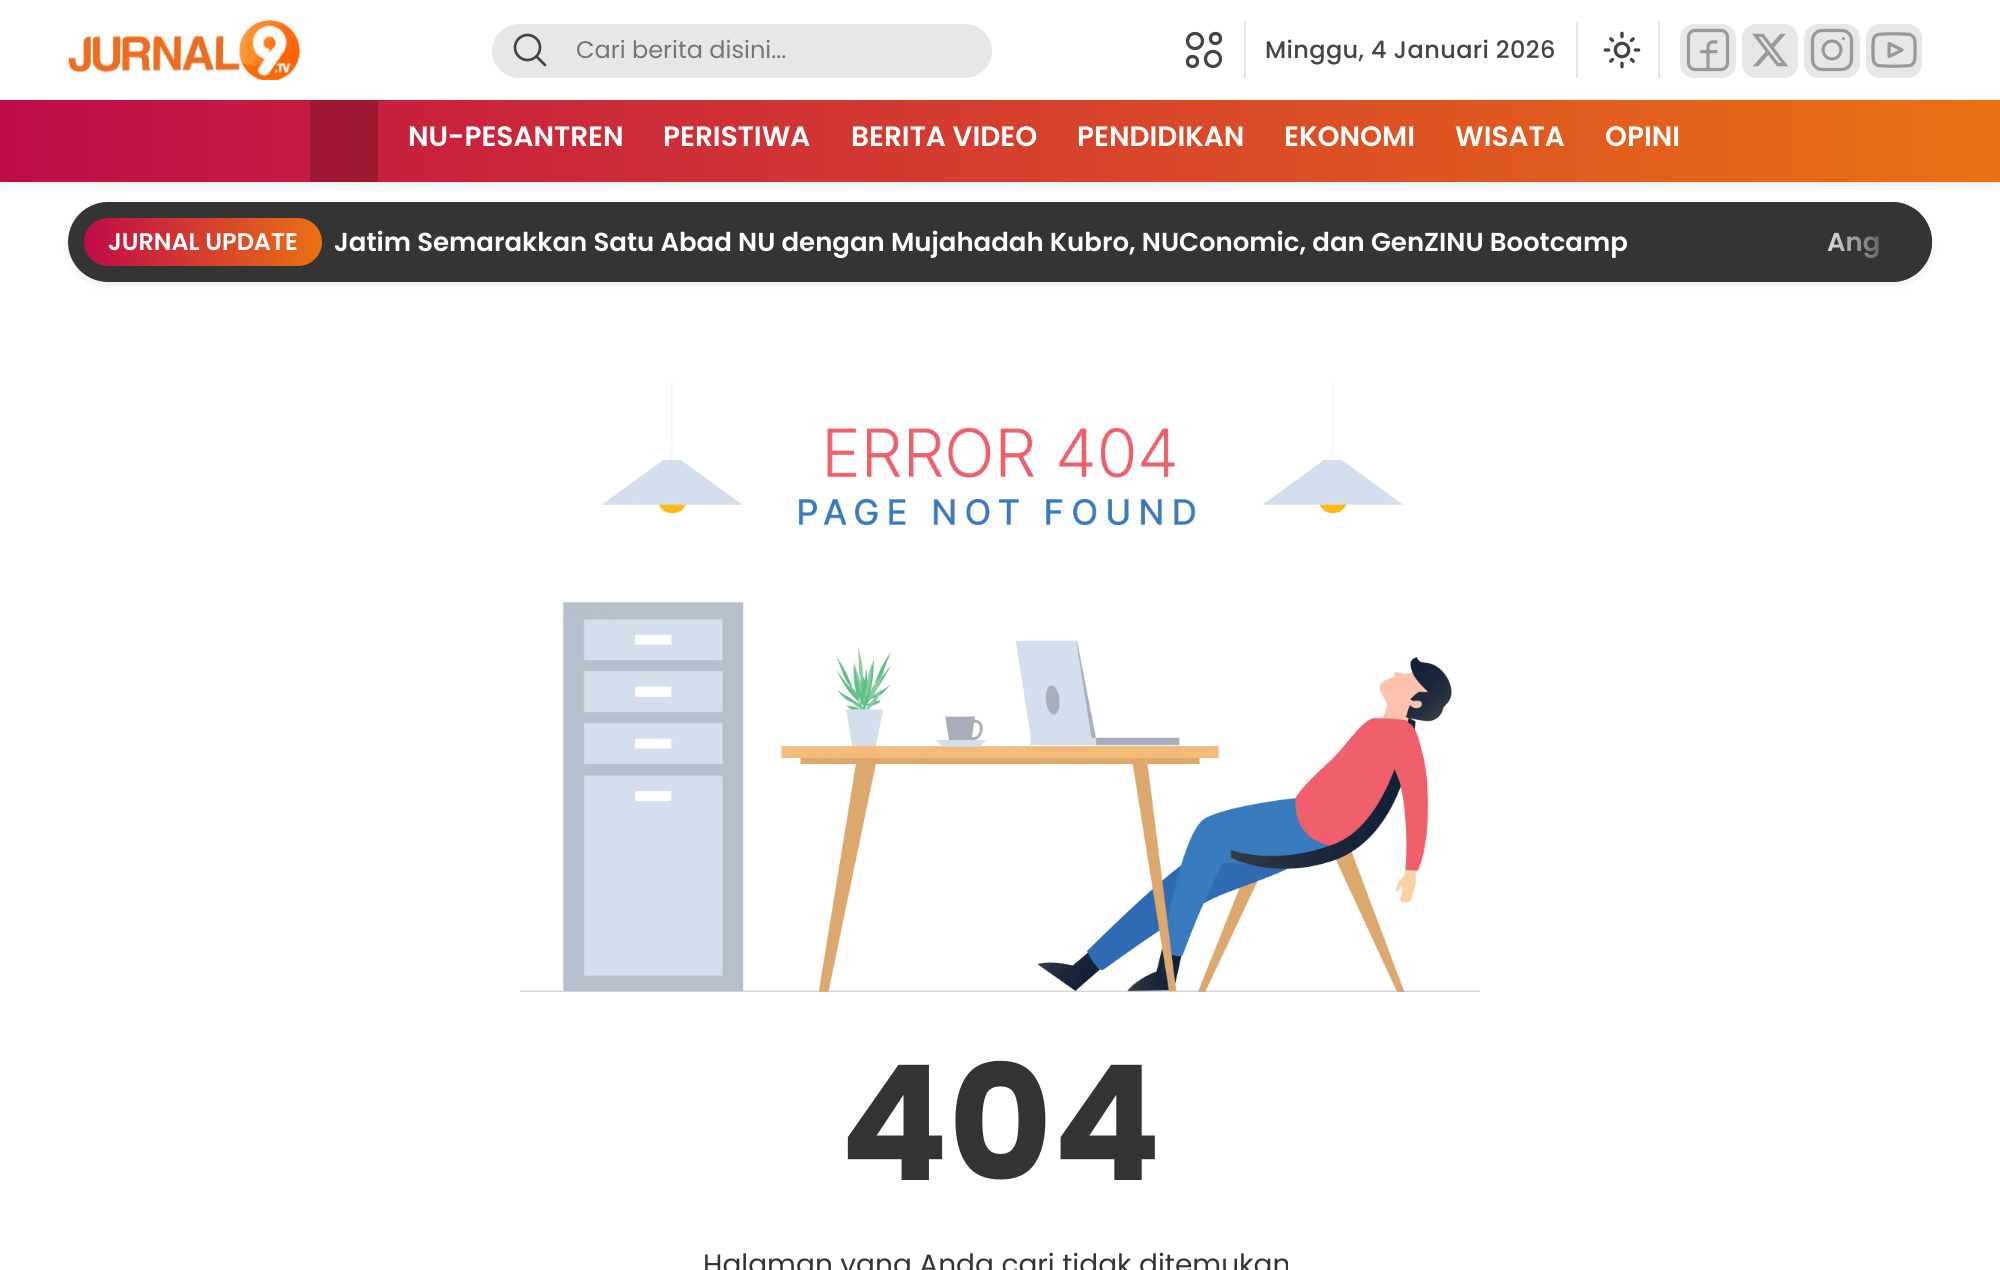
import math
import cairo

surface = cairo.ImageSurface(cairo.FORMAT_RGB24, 2000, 1270)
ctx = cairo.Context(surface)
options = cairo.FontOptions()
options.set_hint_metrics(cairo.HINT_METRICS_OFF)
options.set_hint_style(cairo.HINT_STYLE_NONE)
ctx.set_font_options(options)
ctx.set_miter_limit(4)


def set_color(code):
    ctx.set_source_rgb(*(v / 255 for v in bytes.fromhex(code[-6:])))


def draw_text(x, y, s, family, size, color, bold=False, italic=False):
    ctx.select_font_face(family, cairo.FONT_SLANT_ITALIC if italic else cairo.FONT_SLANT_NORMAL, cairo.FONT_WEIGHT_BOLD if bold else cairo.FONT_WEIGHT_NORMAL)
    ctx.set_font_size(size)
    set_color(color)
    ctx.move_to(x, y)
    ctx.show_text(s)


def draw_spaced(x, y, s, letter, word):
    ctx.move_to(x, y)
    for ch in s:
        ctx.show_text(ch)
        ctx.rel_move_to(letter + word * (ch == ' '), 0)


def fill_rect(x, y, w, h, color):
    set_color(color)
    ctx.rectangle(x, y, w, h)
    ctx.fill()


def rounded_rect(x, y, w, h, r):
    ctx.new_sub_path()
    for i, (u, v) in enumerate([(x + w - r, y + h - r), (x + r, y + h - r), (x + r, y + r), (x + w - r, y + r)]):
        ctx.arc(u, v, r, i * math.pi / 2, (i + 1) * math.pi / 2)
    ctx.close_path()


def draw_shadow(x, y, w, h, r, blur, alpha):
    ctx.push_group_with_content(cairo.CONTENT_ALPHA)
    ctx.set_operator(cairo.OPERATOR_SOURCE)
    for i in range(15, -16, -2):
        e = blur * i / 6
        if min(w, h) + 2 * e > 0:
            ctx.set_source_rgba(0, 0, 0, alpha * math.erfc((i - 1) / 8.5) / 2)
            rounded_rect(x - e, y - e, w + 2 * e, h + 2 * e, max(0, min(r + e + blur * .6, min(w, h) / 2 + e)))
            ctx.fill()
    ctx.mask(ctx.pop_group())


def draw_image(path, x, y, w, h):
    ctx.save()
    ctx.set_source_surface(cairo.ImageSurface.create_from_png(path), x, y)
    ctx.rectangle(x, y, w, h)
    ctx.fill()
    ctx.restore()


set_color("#ffffff")
ctx.paint()
ctx.save()
ctx.rectangle(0, 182, 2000, 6)
ctx.clip()
set_color("#000000")
draw_shadow(0, 4, 2000, 182, 0, 4, 0.07)
ctx.restore()
draw_image("assets/img1.png", 68, 20, 232, 60)
set_color("#e7e7e7")
rounded_rect(493, 25, 498, 52, 26)
ctx.fill_preserve()
ctx.stroke()
ctx.arc(527.5, 47.5, 12.5, 0, 2 * math.pi)
set_color("#444444")
ctx.set_line_width(2.7)
ctx.stroke()
ctx.new_path()
ctx.move_to(545, 65)
ctx.line_to(536.5, 56.5)
ctx.set_line_cap(cairo.LINE_CAP_ROUND)
ctx.set_line_join(cairo.LINE_JOIN_ROUND)
ctx.stroke()
draw_text(576, 58, "Cari berita disini...", "Poppins", 24, "#757575")
fill_rect(1244, 22, 2, 56, "#e5e5e5")
ctx.new_path()
ctx.arc(1213, 59, 7.5, 0, 2 * math.pi)
set_color("#444444")
ctx.set_line_width(3.3)
ctx.set_line_cap(cairo.LINE_CAP_BUTT)
ctx.set_line_join(cairo.LINE_JOIN_MITER)
ctx.stroke()
ctx.arc(1195, 41, 7.5, 0, 2 * math.pi)
ctx.stroke()
ctx.arc(1192.5, 61.5, 5, 0, 2 * math.pi)
ctx.stroke()
ctx.arc(1215.5, 38.5, 5, 0, 2 * math.pi)
ctx.stroke()
fill_rect(1576, 22, 2, 56, "#e5e5e5")
ctx.select_font_face("Poppins Medium")
set_color("#444444")
draw_spaced(1265, 58, "Minggu, 4 Januari 2026", 0.4, 0)
fill_rect(1658, 22, 2, 56, "#e5e5e5")
draw_image("assets/img2.png", 1603, 31, 38, 38)
set_color("#e7e7e7")
rounded_rect(1680, 24, 56, 54, 14)
ctx.fill()
draw_image("assets/img3.png", 1686, 28, 44, 44)
rounded_rect(1742, 24, 56, 54, 14)
ctx.fill()
draw_image("assets/img4.png", 1752, 33, 36, 34)
rounded_rect(1804, 24, 56, 54, 14)
ctx.fill()
draw_image("assets/img5.png", 1810, 28, 44, 44)
rounded_rect(1866, 24, 56, 54, 14)
ctx.fill()
draw_image("assets/img6.png", 1871, 32, 46, 36)
gradient = cairo.LinearGradient(0, 141, 2000, 141)
gradient.add_color_stop_rgba(0, 0.749, 0.047, 0.286, 1)
gradient.add_color_stop_rgba(1, 0.918, 0.443, 0.075, 1)
ctx.set_source(gradient)
ctx.rectangle(0, 100, 2000, 82)
ctx.fill()
gradient = cairo.LinearGradient(0, 141, 2000, 141)
gradient.add_color_stop_rgba(0, 0.6, 0.039, 0.227, 1)
gradient.add_color_stop_rgba(1, 0.733, 0.353, 0.059, 1)
ctx.set_source(gradient)
ctx.rectangle(310, 100, 68, 82)
ctx.fill()
draw_text(408, 146, "NU-PESANTREN", "Poppins SemiBold", 28, "#ffffff")
draw_text(663, 146, "PERISTIWA", "Poppins SemiBold", 28, "#ffffff")
draw_text(851, 146, "BERITA VIDEO", "Poppins SemiBold", 28, "#ffffff")
draw_text(1077, 146, "PENDIDIKAN", "Poppins SemiBold", 28, "#ffffff")
draw_text(1284, 146, "EKONOMI", "Poppins SemiBold", 28, "#ffffff")
draw_text(1455, 146, "WISATA", "Poppins SemiBold", 28, "#ffffff")
draw_text(1605, 146, "OPINI", "Poppins SemiBold", 28, "#ffffff")
set_color("#000000")
draw_shadow(68, 206, 1864, 80, 40, 4, 0.07)
set_color("#343434")
rounded_rect(68, 202, 1864, 80, 40)
ctx.fill()
draw_text(1827, 251, "Ang", "Poppins SemiBold", 26, "#ffffff")
gradient = cairo.LinearGradient(1932, 242, 1812, 242)
gradient.add_color_stop_rgba(0.25, 0.204, 0.204, 0.204, 1)
gradient.add_color_stop_rgba(1, 0.204, 0.204, 0.204, 0)
ctx.set_source(gradient)
ctx.new_path()
ctx.move_to(1812, 202)
ctx.line_to(1892, 202)
ctx.curve_to(1914, 202, 1932, 220, 1932, 242)
ctx.curve_to(1932, 264, 1914, 282, 1892, 282)
ctx.line_to(1812, 282)
ctx.close_path()
ctx.fill()
gradient = cairo.LinearGradient(84, 242, 322, 242)
gradient.add_color_stop_rgba(0, 0.749, 0.047, 0.286, 1)
gradient.add_color_stop_rgba(1, 0.918, 0.443, 0.075, 1)
ctx.set_source(gradient)
rounded_rect(84, 218, 238, 48, 24)
ctx.fill()
draw_text(108, 250, "JURNAL UPDATE", "Poppins SemiBold", 24, "#ffffff")
draw_text(334, 251, "Jatim Semarakkan Satu Abad NU dengan Mujahadah Kubro, NUConomic, dan GenZINU Bootcamp", "Poppins SemiBold", 26, "#ffffff")
draw_image("assets/img7.png", 520, 382, 960, 610)
draw_text(840, 1180, "404", "Poppins", 160, "#333333", bold=True)
draw_text(703, 1274, "Halaman yang Anda cari tidak ditemukan", "Poppins", 28, "#333333")
surface.write_to_png("output.png")
